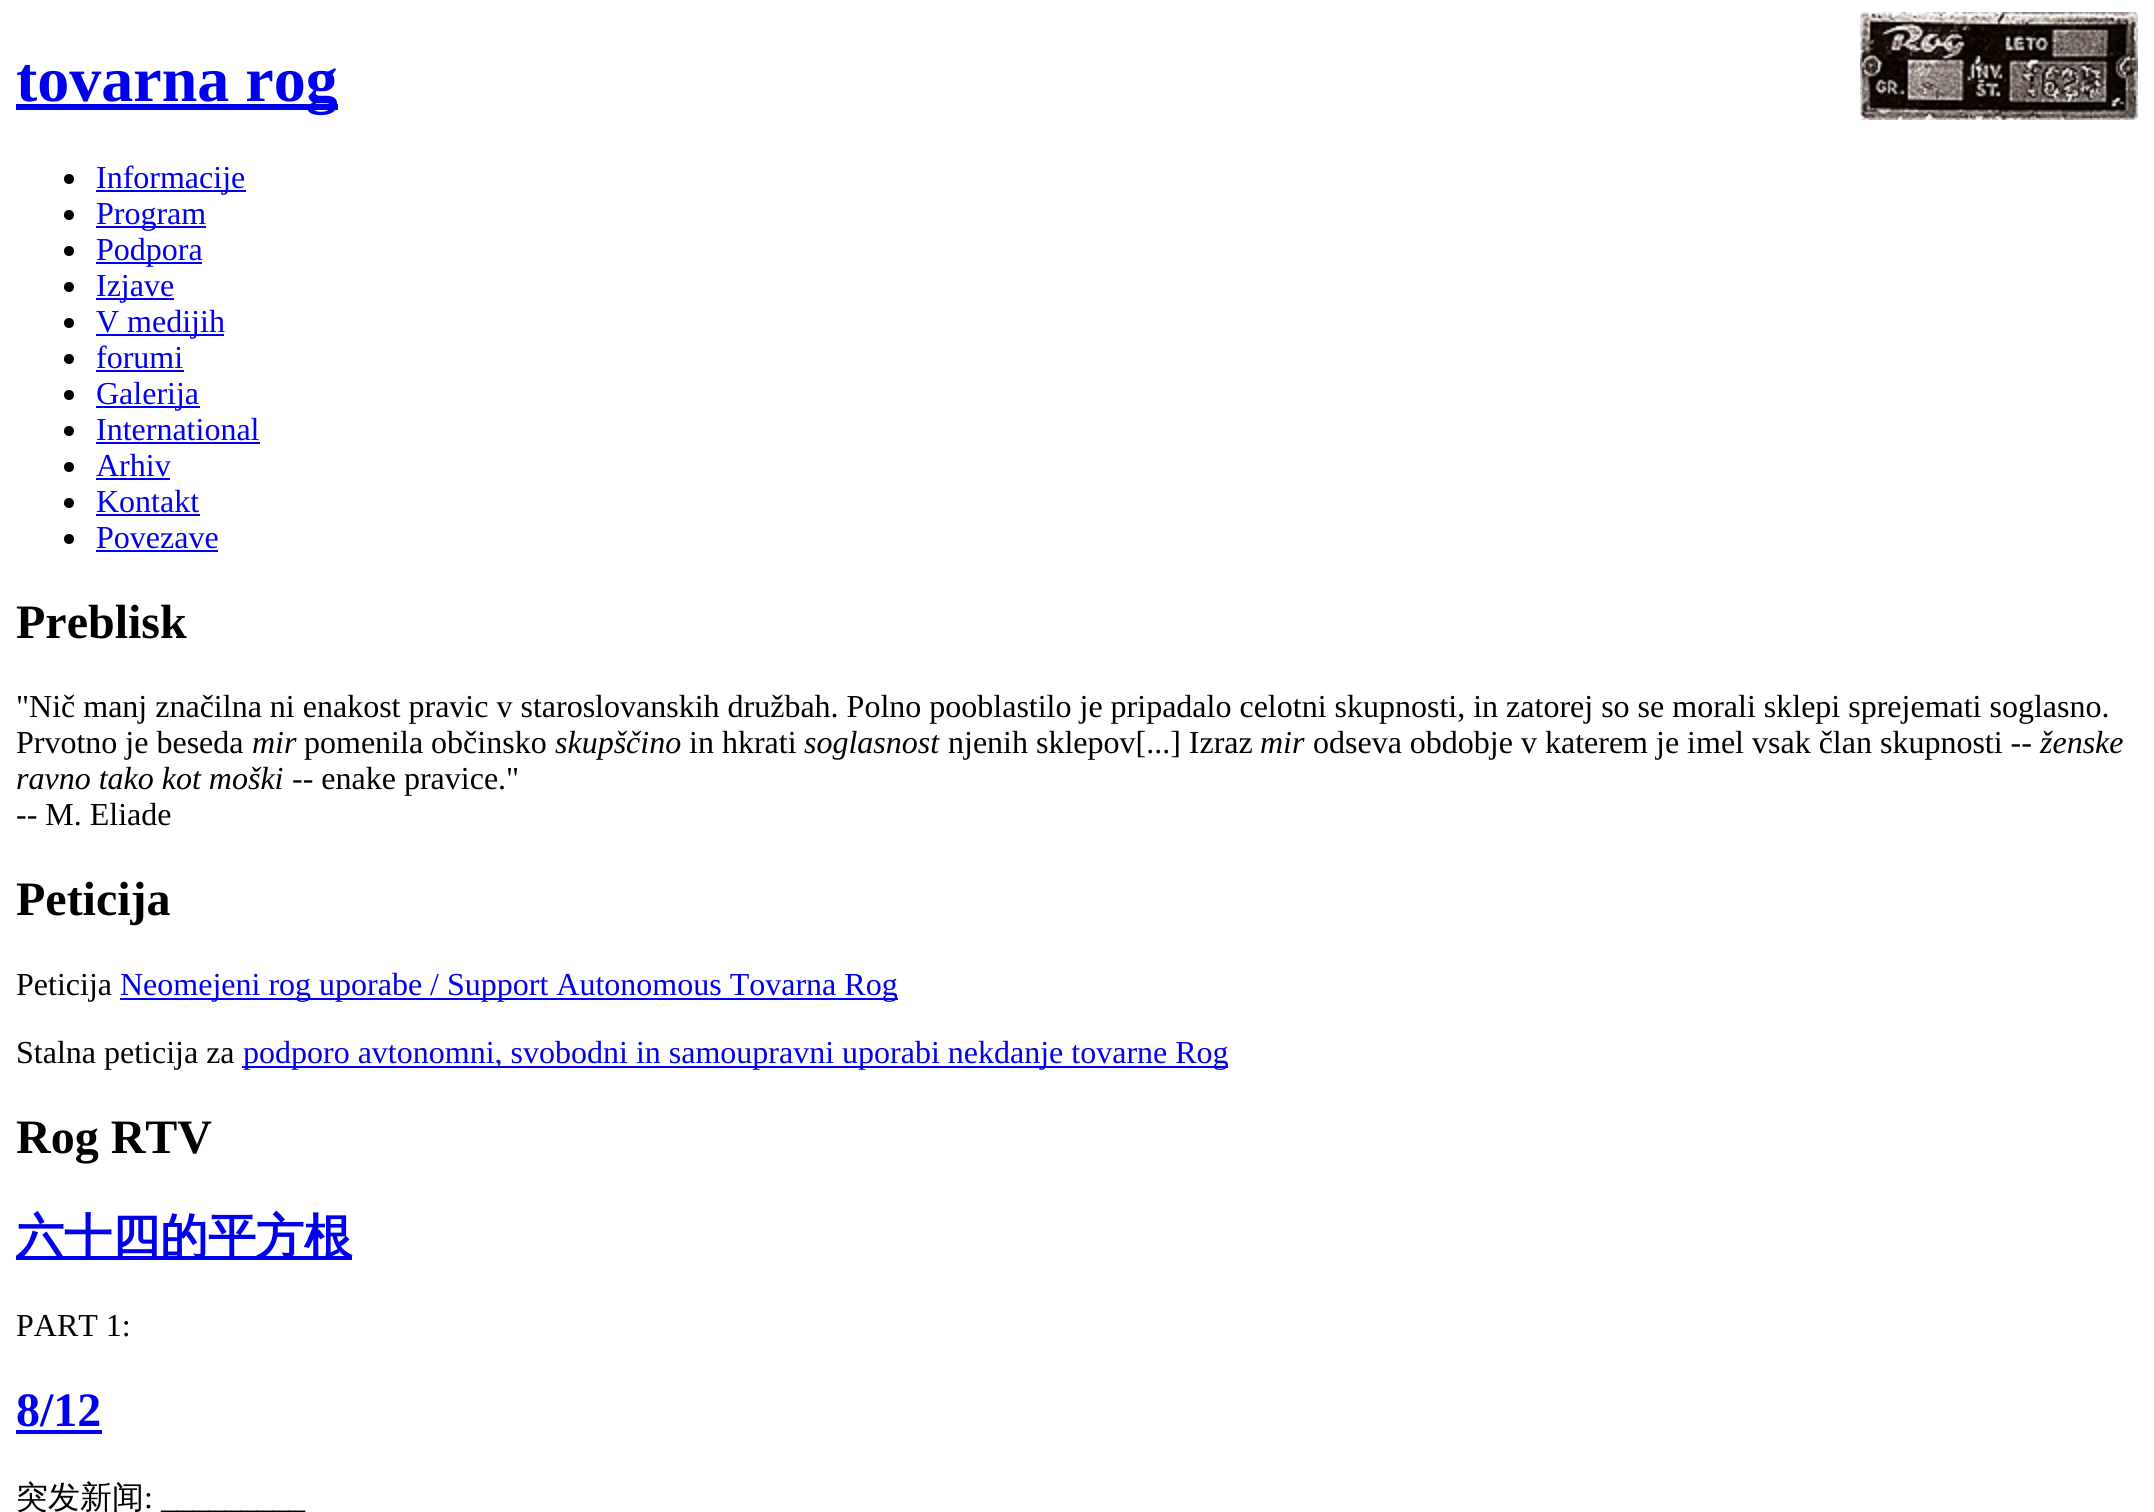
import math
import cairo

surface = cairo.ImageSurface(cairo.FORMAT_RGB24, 2154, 1512)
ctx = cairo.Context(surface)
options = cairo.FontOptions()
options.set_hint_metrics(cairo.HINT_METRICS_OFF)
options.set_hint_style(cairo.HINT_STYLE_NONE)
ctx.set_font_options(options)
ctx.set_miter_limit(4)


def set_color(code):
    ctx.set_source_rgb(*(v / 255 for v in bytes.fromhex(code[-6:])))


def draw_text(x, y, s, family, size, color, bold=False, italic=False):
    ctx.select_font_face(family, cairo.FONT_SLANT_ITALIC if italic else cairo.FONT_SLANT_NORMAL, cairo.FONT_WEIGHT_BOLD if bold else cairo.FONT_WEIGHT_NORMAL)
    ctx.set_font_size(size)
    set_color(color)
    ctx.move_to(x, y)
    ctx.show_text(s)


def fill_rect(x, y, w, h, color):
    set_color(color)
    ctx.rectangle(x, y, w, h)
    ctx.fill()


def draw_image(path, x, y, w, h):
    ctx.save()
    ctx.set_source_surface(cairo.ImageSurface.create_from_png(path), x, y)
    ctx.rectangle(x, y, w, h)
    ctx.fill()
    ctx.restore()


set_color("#ffffff")
ctx.paint()
fill_rect(16, 104, 322, 6, "#0000ee")
draw_text(16, 101, "tovarna rog", "Liberation Serif", 64, "#0000ee", bold=True)
draw_image("assets/img1.png", 1860, 12, 278, 108)
set_color("#000000")
ctx.arc(69, 179, 5, 0, 2 * math.pi)
ctx.fill()
fill_rect(96, 190, 150, 2, "#0000ee")
draw_text(96, 188, "Informacije", "Liberation Serif", 32, "#0000ee")
set_color("#000000")
ctx.new_path()
ctx.arc(69, 215, 5, 0, 2 * math.pi)
ctx.fill()
fill_rect(96, 226, 110, 2, "#0000ee")
draw_text(96, 224, "Program", "Liberation Serif", 32, "#0000ee")
set_color("#000000")
ctx.new_path()
ctx.arc(69, 251, 5, 0, 2 * math.pi)
ctx.fill()
fill_rect(96, 262, 106, 2, "#0000ee")
draw_text(96, 260, "Podpora", "Liberation Serif", 32, "#0000ee")
set_color("#000000")
ctx.new_path()
ctx.arc(69, 287, 5, 0, 2 * math.pi)
ctx.fill()
fill_rect(96, 298, 78, 2, "#0000ee")
draw_text(96, 296, "Izjave", "Liberation Serif", 32, "#0000ee")
set_color("#000000")
ctx.new_path()
ctx.arc(69, 323, 5, 0, 2 * math.pi)
ctx.fill()
fill_rect(96, 334, 128, 2, "#0000ee")
draw_text(96, 332, "V medijih", "Liberation Serif", 32, "#0000ee")
set_color("#000000")
ctx.new_path()
ctx.arc(69, 359, 5, 0, 2 * math.pi)
ctx.fill()
draw_text(96, 368, "forumi", "Liberation Serif", 32, "#0000ee")
fill_rect(96, 370, 88, 2, "#0000ee")
set_color("#000000")
ctx.new_path()
ctx.arc(69, 395, 5, 0, 2 * math.pi)
ctx.fill()
fill_rect(96, 406, 104, 2, "#0000ee")
draw_text(96, 404, "Galerija", "Liberation Serif", 32, "#0000ee")
set_color("#000000")
ctx.new_path()
ctx.arc(69, 431, 5, 0, 2 * math.pi)
ctx.fill()
draw_text(96, 440, "International", "Liberation Serif", 32, "#0000ee")
fill_rect(96, 442, 164, 2, "#0000ee")
set_color("#000000")
ctx.new_path()
ctx.arc(69, 467, 5, 0, 2 * math.pi)
ctx.fill()
draw_text(96, 476, "Arhiv", "Liberation Serif", 32, "#0000ee")
fill_rect(96, 478, 74, 2, "#0000ee")
set_color("#000000")
ctx.new_path()
ctx.arc(69, 503, 5, 0, 2 * math.pi)
ctx.fill()
draw_text(96, 512, "Kontakt", "Liberation Serif", 32, "#0000ee")
fill_rect(96, 514, 104, 2, "#0000ee")
set_color("#000000")
ctx.new_path()
ctx.arc(69, 539, 5, 0, 2 * math.pi)
ctx.fill()
draw_text(96, 548, "Povezave", "Liberation Serif", 32, "#0000ee")
fill_rect(96, 550, 122, 2, "#0000ee")
draw_text(16, 638, "Preblisk", "Liberation Serif", 48, "#000000", bold=True)
draw_text(16, 717, "\"Nič manj značilna ni enakost pravic v staroslovanskih družbah. Polno pooblastilo je pripadalo celotni skupnosti, in zatorej so se morali sklepi sprejemati soglasno.", "Liberation Serif", 32, "#000000")
draw_text(16, 753, "Prvotno je beseda", "Liberation Serif", 32, "#000000")
draw_text(252, 753, "mir", "Liberation Serif", 32, "#000000", italic=True)
draw_text(304, 753, "pomenila občinsko", "Liberation Serif", 32, "#000000")
draw_text(555, 753, "skupščino", "Liberation Serif", 32, "#000000", italic=True)
draw_text(689, 753, "in hkrati", "Liberation Serif", 32, "#000000")
draw_text(804, 753, "soglasnost", "Liberation Serif", 32, "#000000", italic=True)
draw_text(948, 753, "njenih sklepov[...] Izraz", "Liberation Serif", 32, "#000000")
draw_text(1260, 753, "mir", "Liberation Serif", 32, "#000000", italic=True)
draw_text(1313, 753, "odseva obdobje v katerem je imel vsak član skupnosti --", "Liberation Serif", 32, "#000000")
draw_text(2040, 753, "ženske", "Liberation Serif", 32, "#000000", italic=True)
draw_text(16, 789, "ravno tako kot moški", "Liberation Serif", 32, "#000000", italic=True)
draw_text(292, 789, "-- enake pravice.\"", "Liberation Serif", 32, "#000000")
draw_text(16, 825, "-- M. Eliade", "Liberation Serif", 32, "#000000")
draw_text(16, 915, "Peticija", "Liberation Serif", 48, "#000000", bold=True)
draw_text(16, 995, "Peticija", "Liberation Serif", 32, "#000000")
fill_rect(120, 998, 778, 2, "#0000ee")
draw_text(120, 995, "Neomejeni rog uporabe / Support Autonomous Tovarna Rog", "Liberation Serif", 32, "#0000ee")
draw_text(16, 1063, "Stalna peticija za", "Liberation Serif", 32, "#000000")
fill_rect(242, 1066, 986, 2, "#0000ee")
draw_text(243, 1063, "podporo avtonomni, svobodni in samoupravni uporabi nekdanje tovarne Rog", "Liberation Serif", 32, "#0000ee")
draw_text(16, 1153, "Rog RTV", "Liberation Serif", 48, "#000000", bold=True)
fill_rect(16, 1256, 336, 4, "#0000ee")
draw_text(16, 1253, "六十四的平方根", "WenQuanYi Zen Hei", 48, "#0000ee", bold=True)
draw_text(16, 1336, "PART 1:", "Liberation Serif", 32, "#000000")
draw_text(16, 1426, "8/12", "Liberation Serif", 48, "#0000ee", bold=True)
fill_rect(16, 1430, 86, 4, "#0000ee")
draw_text(16, 1508, "突发新闻", "WenQuanYi Zen Hei Medium", 32, "#000000")
draw_text(144, 1508, ": _________", "Liberation Serif", 32, "#000000")
surface.write_to_png("output.png")
